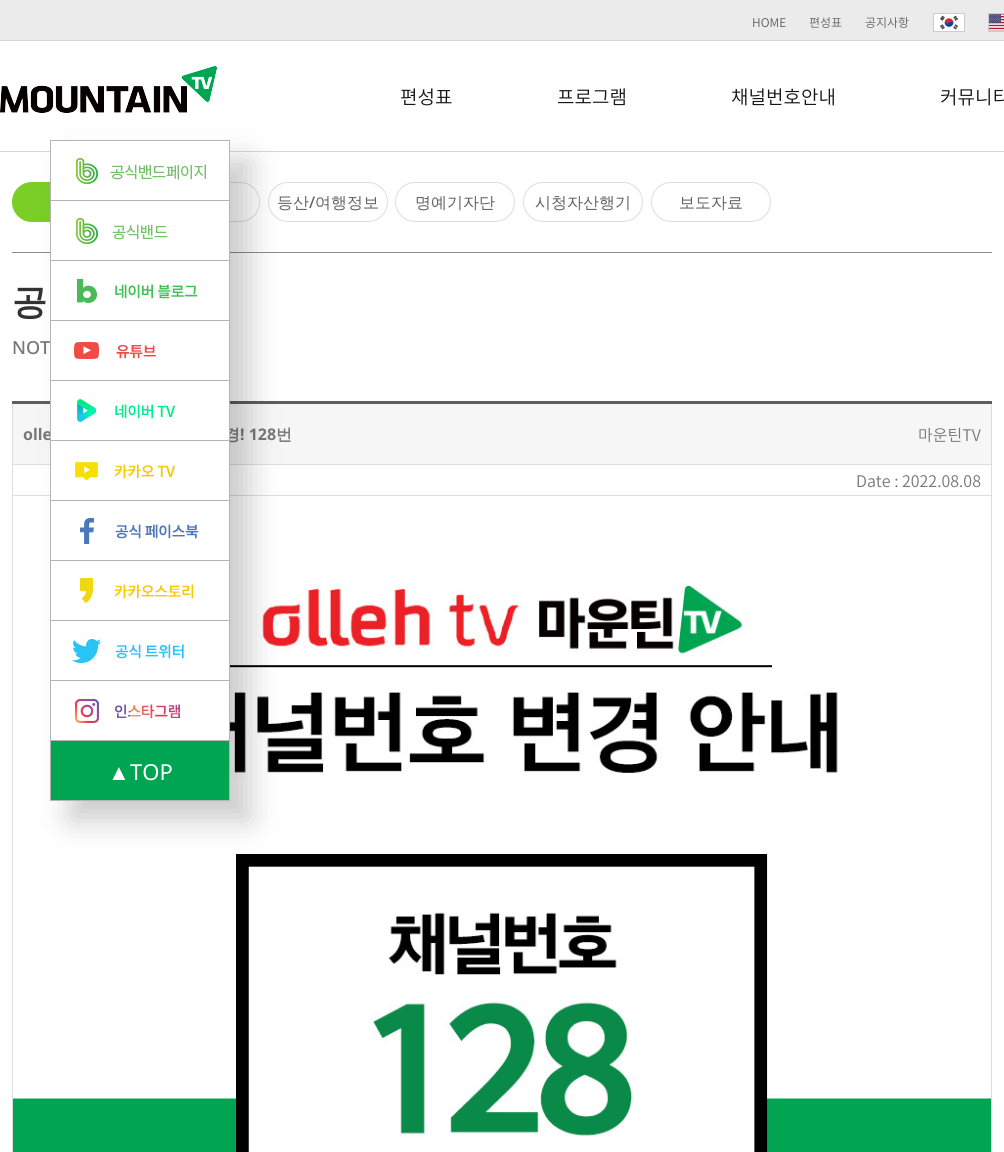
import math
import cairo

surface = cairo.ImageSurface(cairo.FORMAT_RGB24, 1004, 1152)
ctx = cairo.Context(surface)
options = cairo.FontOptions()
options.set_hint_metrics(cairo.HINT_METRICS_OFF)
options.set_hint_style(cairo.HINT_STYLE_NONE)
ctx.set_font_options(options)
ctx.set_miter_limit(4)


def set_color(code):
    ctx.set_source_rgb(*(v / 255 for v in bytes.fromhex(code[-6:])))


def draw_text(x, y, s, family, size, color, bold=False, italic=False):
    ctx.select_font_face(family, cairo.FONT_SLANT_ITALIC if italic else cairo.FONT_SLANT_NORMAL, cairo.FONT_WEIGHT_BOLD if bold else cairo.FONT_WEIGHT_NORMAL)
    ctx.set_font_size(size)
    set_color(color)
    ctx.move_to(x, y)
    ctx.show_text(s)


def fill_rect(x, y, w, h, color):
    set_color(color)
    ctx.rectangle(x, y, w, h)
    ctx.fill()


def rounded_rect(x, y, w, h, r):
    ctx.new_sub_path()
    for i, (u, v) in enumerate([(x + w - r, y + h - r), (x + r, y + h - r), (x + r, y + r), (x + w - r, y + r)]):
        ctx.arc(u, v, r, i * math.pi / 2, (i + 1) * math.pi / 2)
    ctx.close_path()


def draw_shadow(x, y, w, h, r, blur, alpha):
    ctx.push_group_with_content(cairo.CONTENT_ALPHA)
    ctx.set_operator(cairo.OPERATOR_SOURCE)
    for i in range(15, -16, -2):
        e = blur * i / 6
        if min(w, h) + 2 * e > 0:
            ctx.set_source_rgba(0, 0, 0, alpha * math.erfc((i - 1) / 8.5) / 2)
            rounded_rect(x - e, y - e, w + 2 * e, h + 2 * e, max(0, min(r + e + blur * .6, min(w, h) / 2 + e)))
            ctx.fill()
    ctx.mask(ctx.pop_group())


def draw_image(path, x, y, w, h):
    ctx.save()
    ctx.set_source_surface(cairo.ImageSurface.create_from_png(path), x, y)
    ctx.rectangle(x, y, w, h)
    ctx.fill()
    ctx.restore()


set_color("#ffffff")
ctx.paint()
fill_rect(0, 151, 1004, 1, "#d7d7d7")
fill_rect(0, 0, 1004, 40, "#ebebeb")
fill_rect(0, 40, 1004, 1, "#d7d7d7")
draw_text(752, 27, "HOME", "Noto Sans KR Light", 12, "#626262")
draw_text(809, 27, "편성표", "Noto Sans KR Light", 12, "#626262")
draw_text(865, 27, "공지사항", "Noto Sans KR Light", 12, "#626262")
draw_image("assets/img1.png", 933, 13, 32, 19)
draw_image("assets/img2.png", 988, 13, 16, 19)
draw_image("assets/img3.png", 0, 66, 217, 47)
draw_text(400, 104, "편성표", "Noto Sans KR Light", 19, "#161616")
draw_text(557, 104, "프로그램", "Noto Sans KR Light", 19, "#161616")
draw_text(731, 104, "채널번호안내", "Noto Sans KR Light", 19, "#161616")
draw_text(940, 104, "커뮤니티", "Noto Sans KR Light", 19, "#161616")
fill_rect(12, 252, 980, 1, "#8b8b8b")
set_color("#7ace26")
rounded_rect(12.5, 182.5, 119, 39, 19.5)
ctx.fill_preserve()
ctx.set_line_width(1)
ctx.stroke()
rounded_rect(140.5, 182.5, 119, 39, 19.5)
set_color("#dddddd")
ctx.stroke()
rounded_rect(268.5, 182.5, 119, 39, 19.5)
ctx.stroke()
draw_text(277, 208, "등산", "WenQuanYi Zen Hei Medium", 16, "#626262")
draw_text(309, 208, "/", "Noto Sans Medium", 16, "#626262")
draw_text(315, 208, "여행정보", "WenQuanYi Zen Hei Medium", 16, "#626262")
rounded_rect(395.5, 182.5, 119, 39, 19.5)
set_color("#dddddd")
ctx.stroke()
draw_text(415, 208, "명예기자단", "WenQuanYi Zen Hei Medium", 16, "#626262")
rounded_rect(523.5, 182.5, 119, 39, 19.5)
set_color("#dddddd")
ctx.stroke()
draw_text(535, 208, "시청자산행기", "WenQuanYi Zen Hei Medium", 16, "#626262")
rounded_rect(651.5, 182.5, 119, 39, 19.5)
set_color("#dddddd")
ctx.stroke()
draw_text(679, 208, "보도자료", "WenQuanYi Zen Hei Medium", 16, "#626262")
draw_text(12, 314, "공", "WenQuanYi Zen Hei", 35, "#333333", bold=True)
draw_text(12, 354, "NOT", "Noto Sans Medium", 18, "#787878")
fill_rect(12, 464, 980, 1, "#dddddd")
fill_rect(12, 495, 980, 1, "#dddddd")
fill_rect(991, 495, 1, 657, "#dddddd")
fill_rect(991, 402, 1, 94, "#dddddd")
fill_rect(12, 495, 1, 657, "#dddddd")
fill_rect(12, 402, 1, 94, "#dddddd")
fill_rect(12, 401, 980, 3, "#5d5d5d")
fill_rect(13, 404, 978, 60, "#f6f6f6")
draw_text(23, 440, "olle", "Noto Sans", 16, "#787878", bold=True)
draw_text(224, 440, "경", "WenQuanYi Zen Hei", 16, "#787878", bold=True)
draw_text(240, 440, "! 128", "Noto Sans", 16, "#787878", bold=True)
draw_text(276, 440, "번", "WenQuanYi Zen Hei", 16, "#787878", bold=True)
draw_text(918, 441, "마운틴TV", "Noto Sans KR Light", 16, "#787878")
draw_text(856, 487, "Date : 2022.08.08", "Noto Sans KR Light", 16, "#787878")
draw_image("assets/img4.png", 13, 582, 978, 570)
ctx.save()
ctx.set_fill_rule(cairo.FILL_RULE_EVEN_ODD)
ctx.new_path()
ctx.move_to(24, 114)
ctx.line_to(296, 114)
ctx.line_to(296, 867)
ctx.line_to(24, 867)
ctx.close_path()
ctx.move_to(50, 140)
ctx.line_to(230, 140)
ctx.line_to(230, 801)
ctx.line_to(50, 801)
ctx.close_path()
ctx.clip()
set_color("#000000")
draw_shadow(70, 160, 180, 661, 0, 15, 0.2)
ctx.restore()
ctx.rectangle(50.5, 140.5, 179, 660)
set_color("#b4b4b4")
ctx.stroke()
fill_rect(51, 200, 178, 1, "#b4b4b4")
fill_rect(51, 151, 178, 49, "#ffffff")
draw_image("assets/img5.png", 76, 158, 131, 29)
fill_rect(51, 260, 178, 1, "#b4b4b4")
fill_rect(51, 201, 178, 52, "#ffffff")
draw_image("assets/img6.png", 76, 218, 94, 29)
fill_rect(51, 320, 178, 1, "#b4b4b4")
draw_image("assets/img7.png", 77, 279, 123, 26)
fill_rect(51, 380, 178, 1, "#b4b4b4")
draw_image("assets/img8.png", 74, 342, 82, 19)
fill_rect(51, 440, 178, 1, "#b4b4b4")
fill_rect(51, 401, 178, 39, "#ffffff")
draw_image("assets/img9.png", 77, 399, 98, 23)
fill_rect(51, 500, 178, 1, "#b4b4b4")
fill_rect(51, 441, 178, 55, "#ffffff")
draw_image("assets/img10.png", 75, 461, 104, 19)
fill_rect(51, 560, 178, 1, "#b4b4b4")
draw_image("assets/img11.png", 80, 518, 119, 26)
fill_rect(51, 620, 178, 1, "#b4b4b4")
draw_image("assets/img12.png", 78, 578, 116, 27)
fill_rect(51, 680, 178, 1, "#b4b4b4")
fill_rect(211, 665, 18, 3, "#ffffff")
draw_image("assets/img13.png", 72, 639, 112, 24)
fill_rect(51, 740, 178, 1, "#b4b4b4")
fill_rect(172, 693, 57, 47, "#ffffff")
draw_image("assets/img14.png", 75, 699, 105, 24)
fill_rect(51, 741, 178, 59, "#00a551")
draw_text(108, 780, "▲", "Liberation Sans", 22, "#ffffff")
draw_text(130, 780, "TOP", "Noto Sans", 22, "#ffffff")
surface.write_to_png("output.png")
